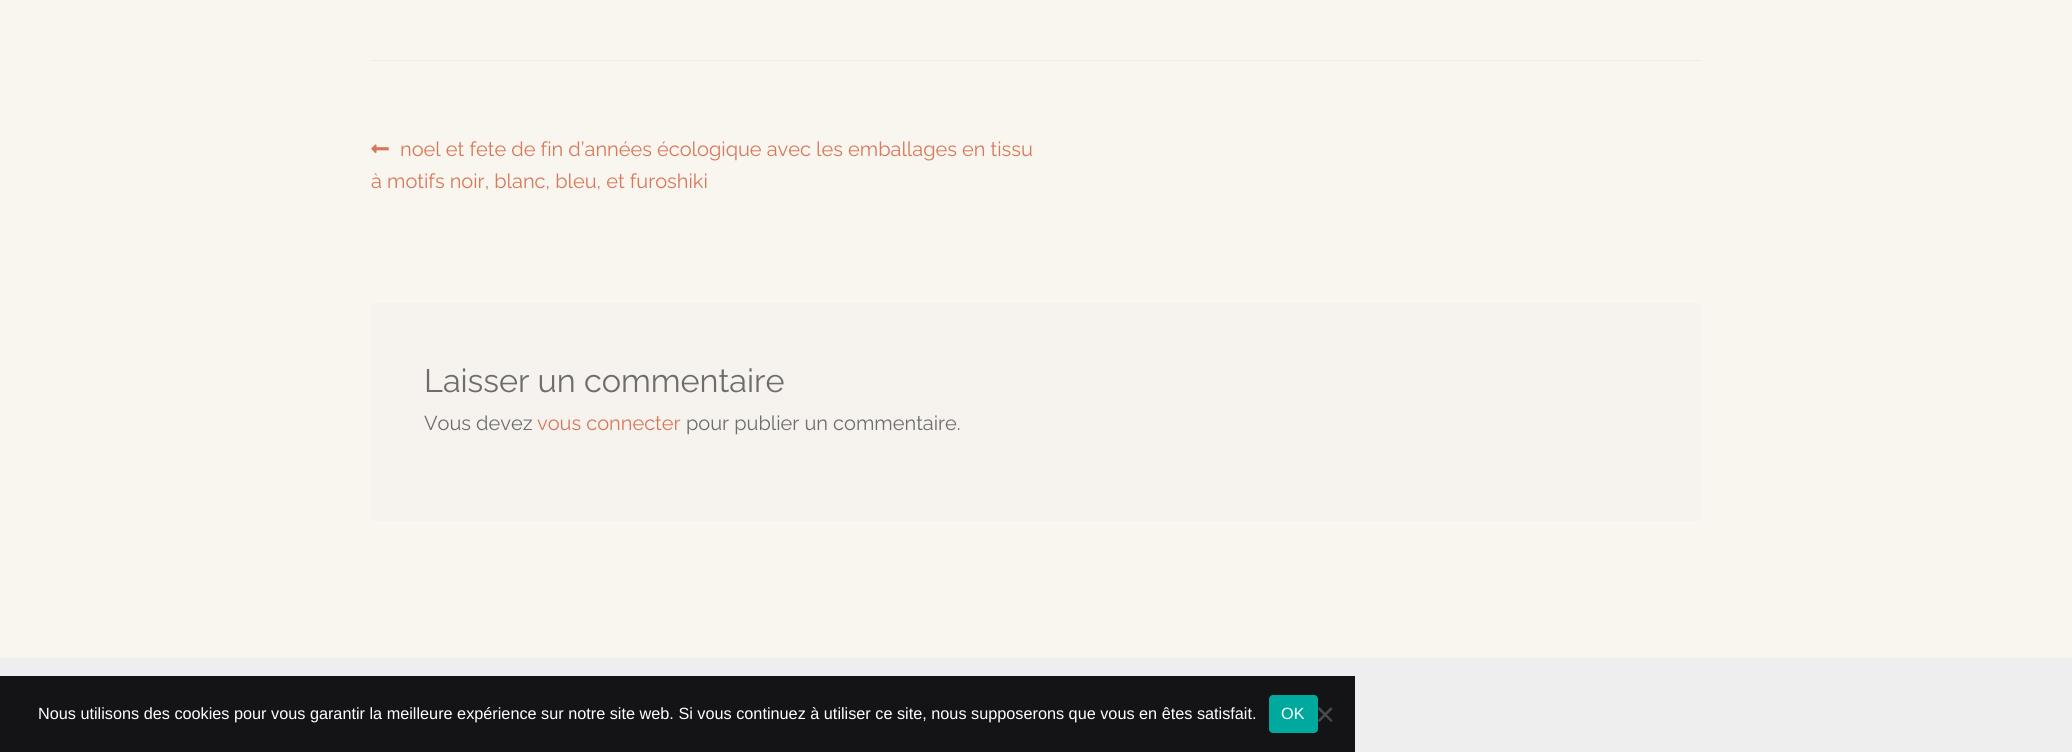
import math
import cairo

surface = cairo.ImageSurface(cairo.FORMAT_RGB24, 2072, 752)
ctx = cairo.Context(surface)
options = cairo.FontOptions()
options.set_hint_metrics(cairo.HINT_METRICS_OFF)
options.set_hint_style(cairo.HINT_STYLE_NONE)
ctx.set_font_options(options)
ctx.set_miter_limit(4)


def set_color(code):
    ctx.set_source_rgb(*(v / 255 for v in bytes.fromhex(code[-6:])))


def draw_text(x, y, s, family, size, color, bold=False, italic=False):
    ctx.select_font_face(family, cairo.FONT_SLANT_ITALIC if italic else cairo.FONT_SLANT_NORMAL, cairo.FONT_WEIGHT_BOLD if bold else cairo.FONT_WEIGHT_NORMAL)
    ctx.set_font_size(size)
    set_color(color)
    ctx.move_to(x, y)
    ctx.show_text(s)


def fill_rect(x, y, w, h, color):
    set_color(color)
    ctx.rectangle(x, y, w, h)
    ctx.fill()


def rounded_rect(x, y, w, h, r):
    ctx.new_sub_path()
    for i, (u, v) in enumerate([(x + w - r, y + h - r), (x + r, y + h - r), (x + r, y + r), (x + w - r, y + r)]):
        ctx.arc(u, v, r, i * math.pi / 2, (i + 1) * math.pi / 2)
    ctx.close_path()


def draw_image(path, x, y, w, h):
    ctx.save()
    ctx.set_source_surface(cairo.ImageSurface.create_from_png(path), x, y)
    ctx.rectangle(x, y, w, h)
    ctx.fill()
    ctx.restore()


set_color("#f9f5ef")
ctx.paint()
fill_rect(371, 60, 1330, 1, "#ede9e3")
draw_image("assets/img1.png", 371, 144, 18, 9)
draw_text(400, 156, "noel et fete de fin d’années écologique avec les emballages en tissu", "Raleway", 20, "#d7785a")
draw_text(371, 188, "à motifs noir, blanc, bleu, et furoshiki", "Raleway", 20, "#d7785a")
fill_rect(371, 303, 1330, 218, "#f6f2ed")
draw_text(424, 392, "Laisser un commentaire", "Raleway", 32.4, "#6d6d6d")
draw_text(424, 430, "Vous devez", "Raleway", 20, "#6d6d6d")
draw_text(537, 430, "vous connecter", "Raleway", 20, "#d7785a")
draw_text(686, 430, "pour publier un commentaire.", "Raleway", 20, "#6d6d6d")
fill_rect(0, 658, 2072, 94, "#eeeeee")
fill_rect(0, 676, 1355, 76, "#141417")
draw_text(38, 719, "Nous utilisons des cookies pour vous garantir la meilleure expérience sur notre site web. Si vous continuez à utiliser ce site, nous supposerons que vous en êtes satisfait.", "Liberation Sans", 16.25, "#ffffff")
set_color("#00a99d")
rounded_rect(1269, 695, 49, 38, 4)
ctx.fill()
draw_text(1281, 719, "OK", "Liberation Sans", 16.25, "#ffffff")
set_color("#4a4a4c")
ctx.new_path()
ctx.move_to(1331, 707)
ctx.line_to(1332.5, 709)
ctx.line_to(1319.5, 722)
ctx.line_to(1317.5, 720.5)
ctx.close_path()
ctx.fill()
ctx.new_path()
ctx.move_to(1317.5, 709)
ctx.line_to(1319.5, 707)
ctx.line_to(1332.5, 720.5)
ctx.line_to(1331, 722)
ctx.close_path()
ctx.fill()
surface.write_to_png("output.png")
